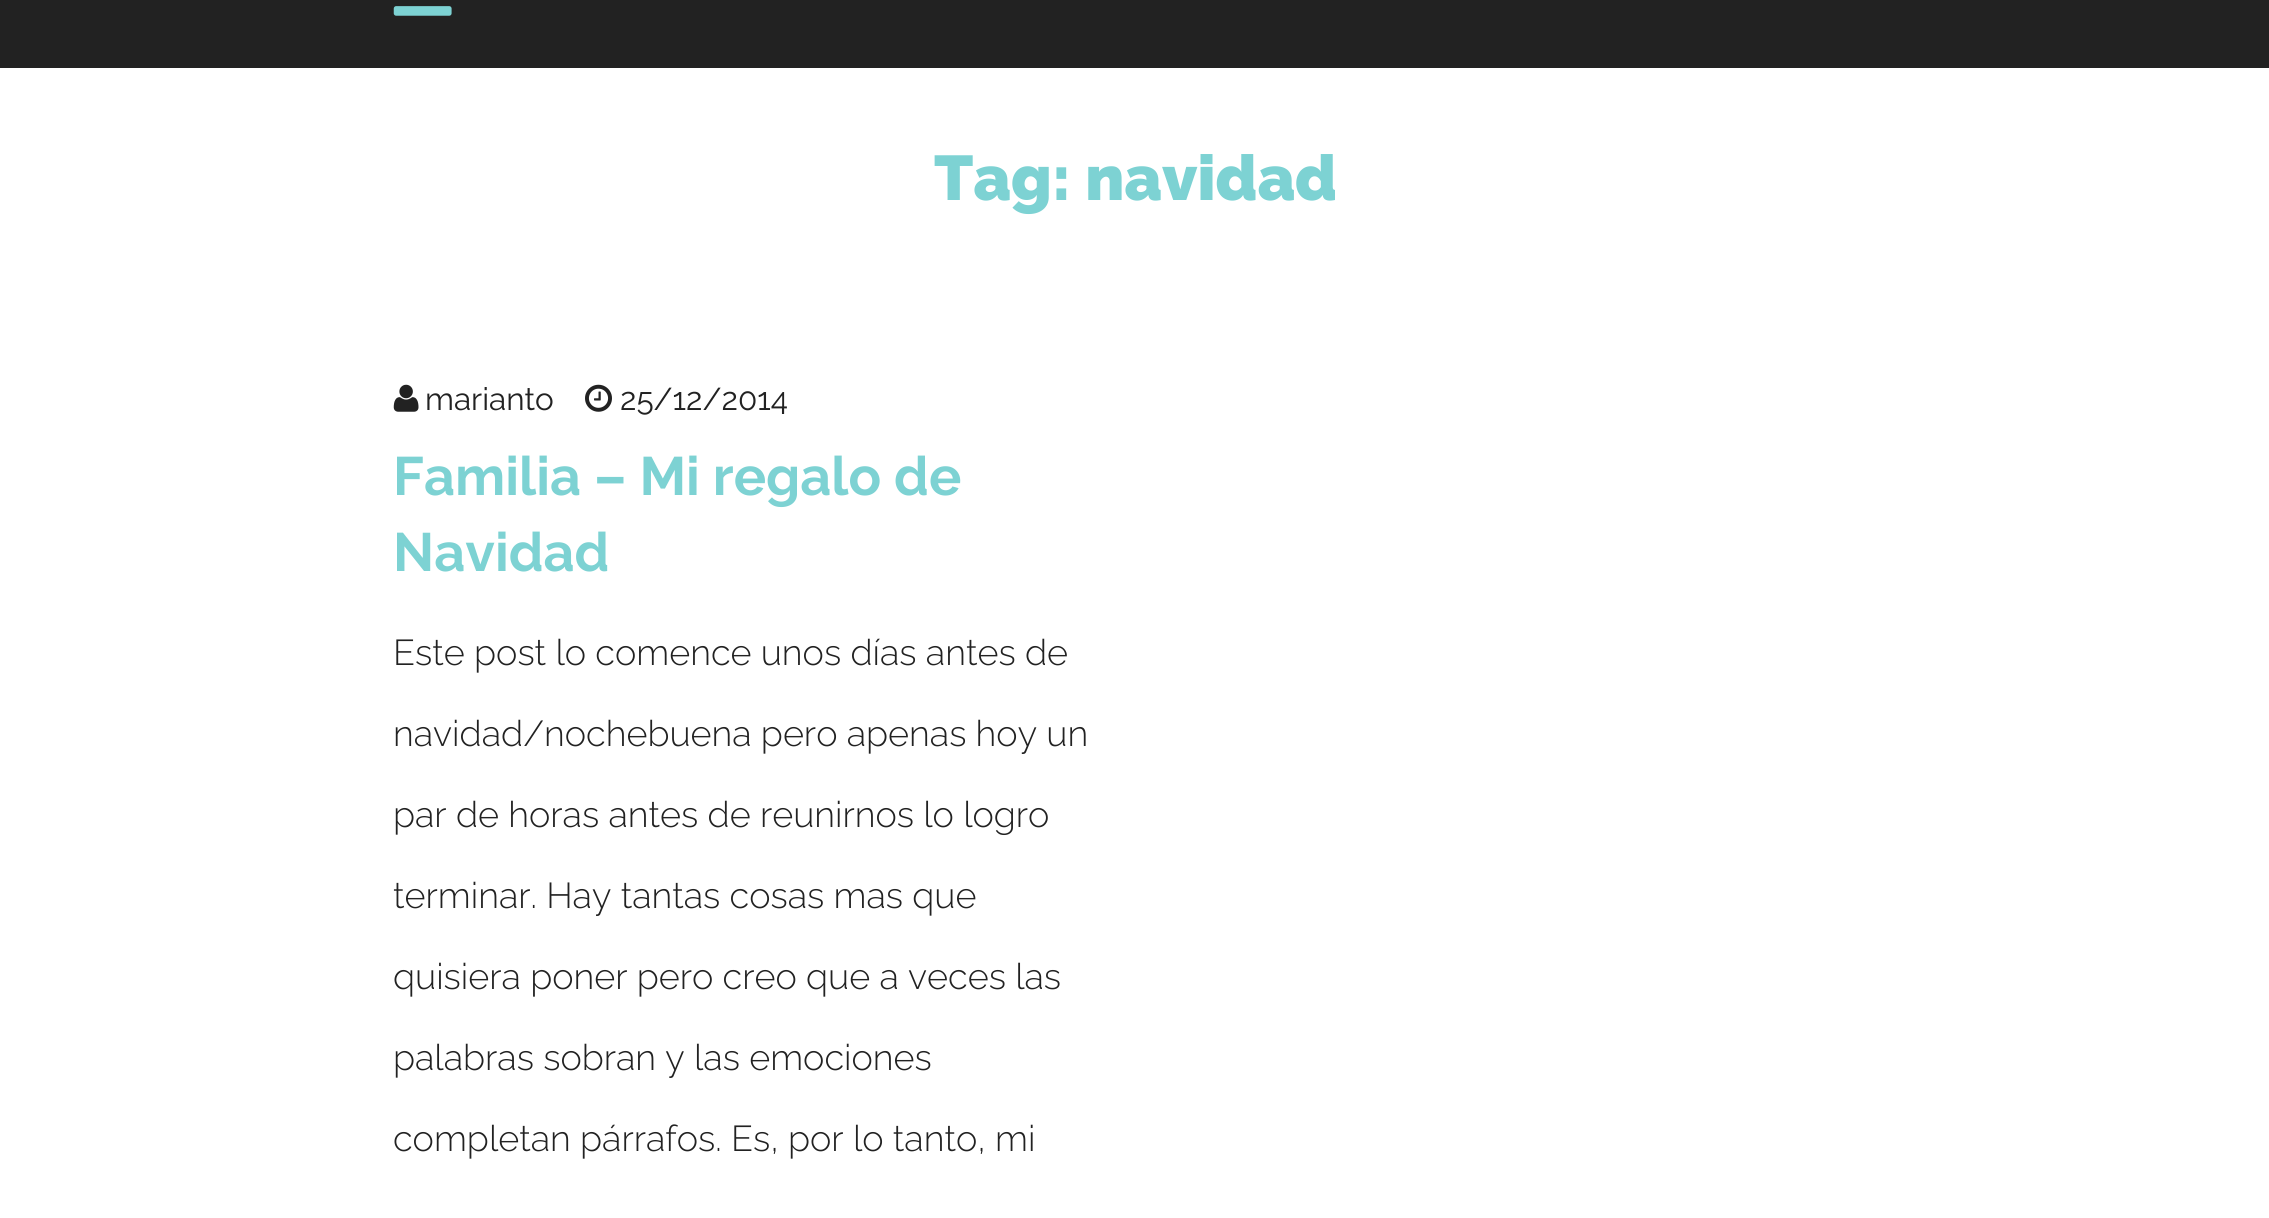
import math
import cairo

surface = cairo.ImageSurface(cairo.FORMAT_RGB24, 2269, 1218)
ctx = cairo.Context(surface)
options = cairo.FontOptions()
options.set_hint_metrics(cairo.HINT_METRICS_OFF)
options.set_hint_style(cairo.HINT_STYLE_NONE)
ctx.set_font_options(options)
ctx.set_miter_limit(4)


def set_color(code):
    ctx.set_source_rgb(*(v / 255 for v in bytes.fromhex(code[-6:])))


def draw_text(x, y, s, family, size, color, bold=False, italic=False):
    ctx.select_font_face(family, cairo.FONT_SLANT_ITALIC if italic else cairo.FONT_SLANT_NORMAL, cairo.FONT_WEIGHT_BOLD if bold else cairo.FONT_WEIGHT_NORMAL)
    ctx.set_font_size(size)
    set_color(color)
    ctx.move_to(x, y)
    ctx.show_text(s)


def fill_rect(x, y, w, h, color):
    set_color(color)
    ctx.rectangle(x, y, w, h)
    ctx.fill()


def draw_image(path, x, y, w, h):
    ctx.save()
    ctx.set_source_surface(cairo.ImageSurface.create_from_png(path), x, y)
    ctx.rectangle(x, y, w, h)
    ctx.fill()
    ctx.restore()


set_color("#ffffff")
ctx.paint()
fill_rect(0, 0, 2269, 68, "#222222")
draw_image("assets/img1.png", 393, 6, 59, 10)
draw_text(934, 200, "Tag: navidad", "Raleway Black", 63, "#7dd2d3")
draw_image("assets/img2.png", 393, 384, 26, 28)
draw_text(425, 410, "marianto", "Raleway", 31.5, "#222222")
draw_image("assets/img3.png", 585, 384, 27, 28)
draw_text(620, 410, "25/12/2014", "Raleway", 31.5, "#222222")
draw_text(393, 495, "Familia – Mi regalo de", "Raleway", 54, "#7dd2d3", bold=True)
draw_text(393, 571, "Navidad", "Raleway", 54, "#7dd2d3", bold=True)
draw_text(393, 665, "Este post lo comence unos días antes de", "Raleway Light", 36, "#222222")
draw_text(393, 746, "navidad/nochebuena pero apenas hoy un", "Raleway Light", 36, "#222222")
draw_text(393, 827, "par de horas antes de reunirnos lo logro", "Raleway Light", 36, "#222222")
draw_text(393, 908, "terminar. Hay tantas cosas mas que", "Raleway Light", 36, "#222222")
draw_text(393, 989, "quisiera poner pero creo que a veces las", "Raleway Light", 36, "#222222")
draw_text(393, 1070, "palabras sobran y las emociones", "Raleway Light", 36, "#222222")
draw_text(393, 1151, "completan párrafos. Es, por lo tanto, mi", "Raleway Light", 36, "#222222")
surface.write_to_png("output.png")
